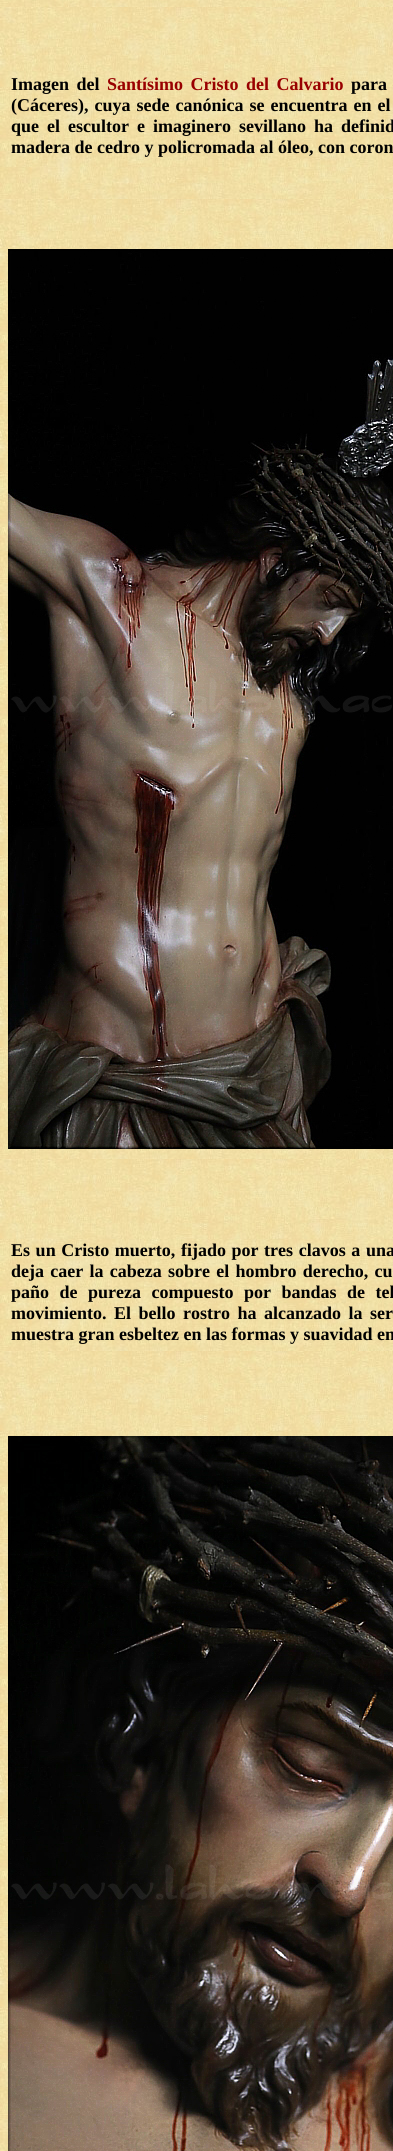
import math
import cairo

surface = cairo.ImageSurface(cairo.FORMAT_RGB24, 393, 2151)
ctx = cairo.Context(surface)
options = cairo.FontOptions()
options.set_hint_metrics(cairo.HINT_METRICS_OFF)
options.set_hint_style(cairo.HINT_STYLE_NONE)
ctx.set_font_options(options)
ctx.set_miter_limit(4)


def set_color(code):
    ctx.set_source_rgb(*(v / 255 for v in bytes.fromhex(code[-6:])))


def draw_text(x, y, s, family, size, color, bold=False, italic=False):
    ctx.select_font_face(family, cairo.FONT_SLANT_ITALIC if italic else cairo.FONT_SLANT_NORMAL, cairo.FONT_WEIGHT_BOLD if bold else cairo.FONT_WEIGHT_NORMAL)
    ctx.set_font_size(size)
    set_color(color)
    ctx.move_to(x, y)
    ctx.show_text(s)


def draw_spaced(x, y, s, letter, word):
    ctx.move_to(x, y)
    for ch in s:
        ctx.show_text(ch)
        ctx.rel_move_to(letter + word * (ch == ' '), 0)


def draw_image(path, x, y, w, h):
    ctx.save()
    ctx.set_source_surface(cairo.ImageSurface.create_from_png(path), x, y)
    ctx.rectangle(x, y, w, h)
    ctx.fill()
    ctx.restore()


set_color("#ffffff")
ctx.paint()
draw_image("assets/img1.png", 0, 0, 393, 2151)
ctx.select_font_face("Liberation Serif", cairo.FONT_SLANT_NORMAL, cairo.FONT_WEIGHT_BOLD)
ctx.set_font_size(18)
set_color("#000000")
draw_spaced(11, 90, "Imagen del", 0, 3)
set_color("#990000")
draw_spaced(107, 90, "Santísimo Cristo del Calvario", 0, 3)
set_color("#000000")
draw_spaced(351, 90, "para", 0, 3)
draw_spaced(11, 111, "(Cáceres), cuya sede canónica se encuentra en el", 0, 1.5)
draw_spaced(11, 132, "que el escultor e imaginero sevillano ha definid", 0, 3.5)
draw_text(11, 153, "madera de cedro y policromada al óleo, con coron", "Liberation Serif", 18, "#000000", bold=True)
draw_image("assets/img2.png", 8, 249, 385, 900)
draw_spaced(11, 1256, "Es un Cristo muerto, fijado por tres clavos a una", 0, 1.1)
draw_spaced(11, 1277, "deja caer la cabeza sobre el hombro derecho, cu", 0, 1.75)
draw_spaced(11, 1298, "paño de pureza compuesto por bandas de tel", 0, 6)
draw_spaced(11, 1319, "movimiento. El bello rostro ha alcanzado la ser", 0, 3)
draw_text(11, 1340, "muestra gran esbeltez en las formas y suavidad en", "Liberation Serif", 18, "#000000", bold=True)
draw_image("assets/img3.png", 8, 1436, 385, 715)
surface.write_to_png("output.png")
